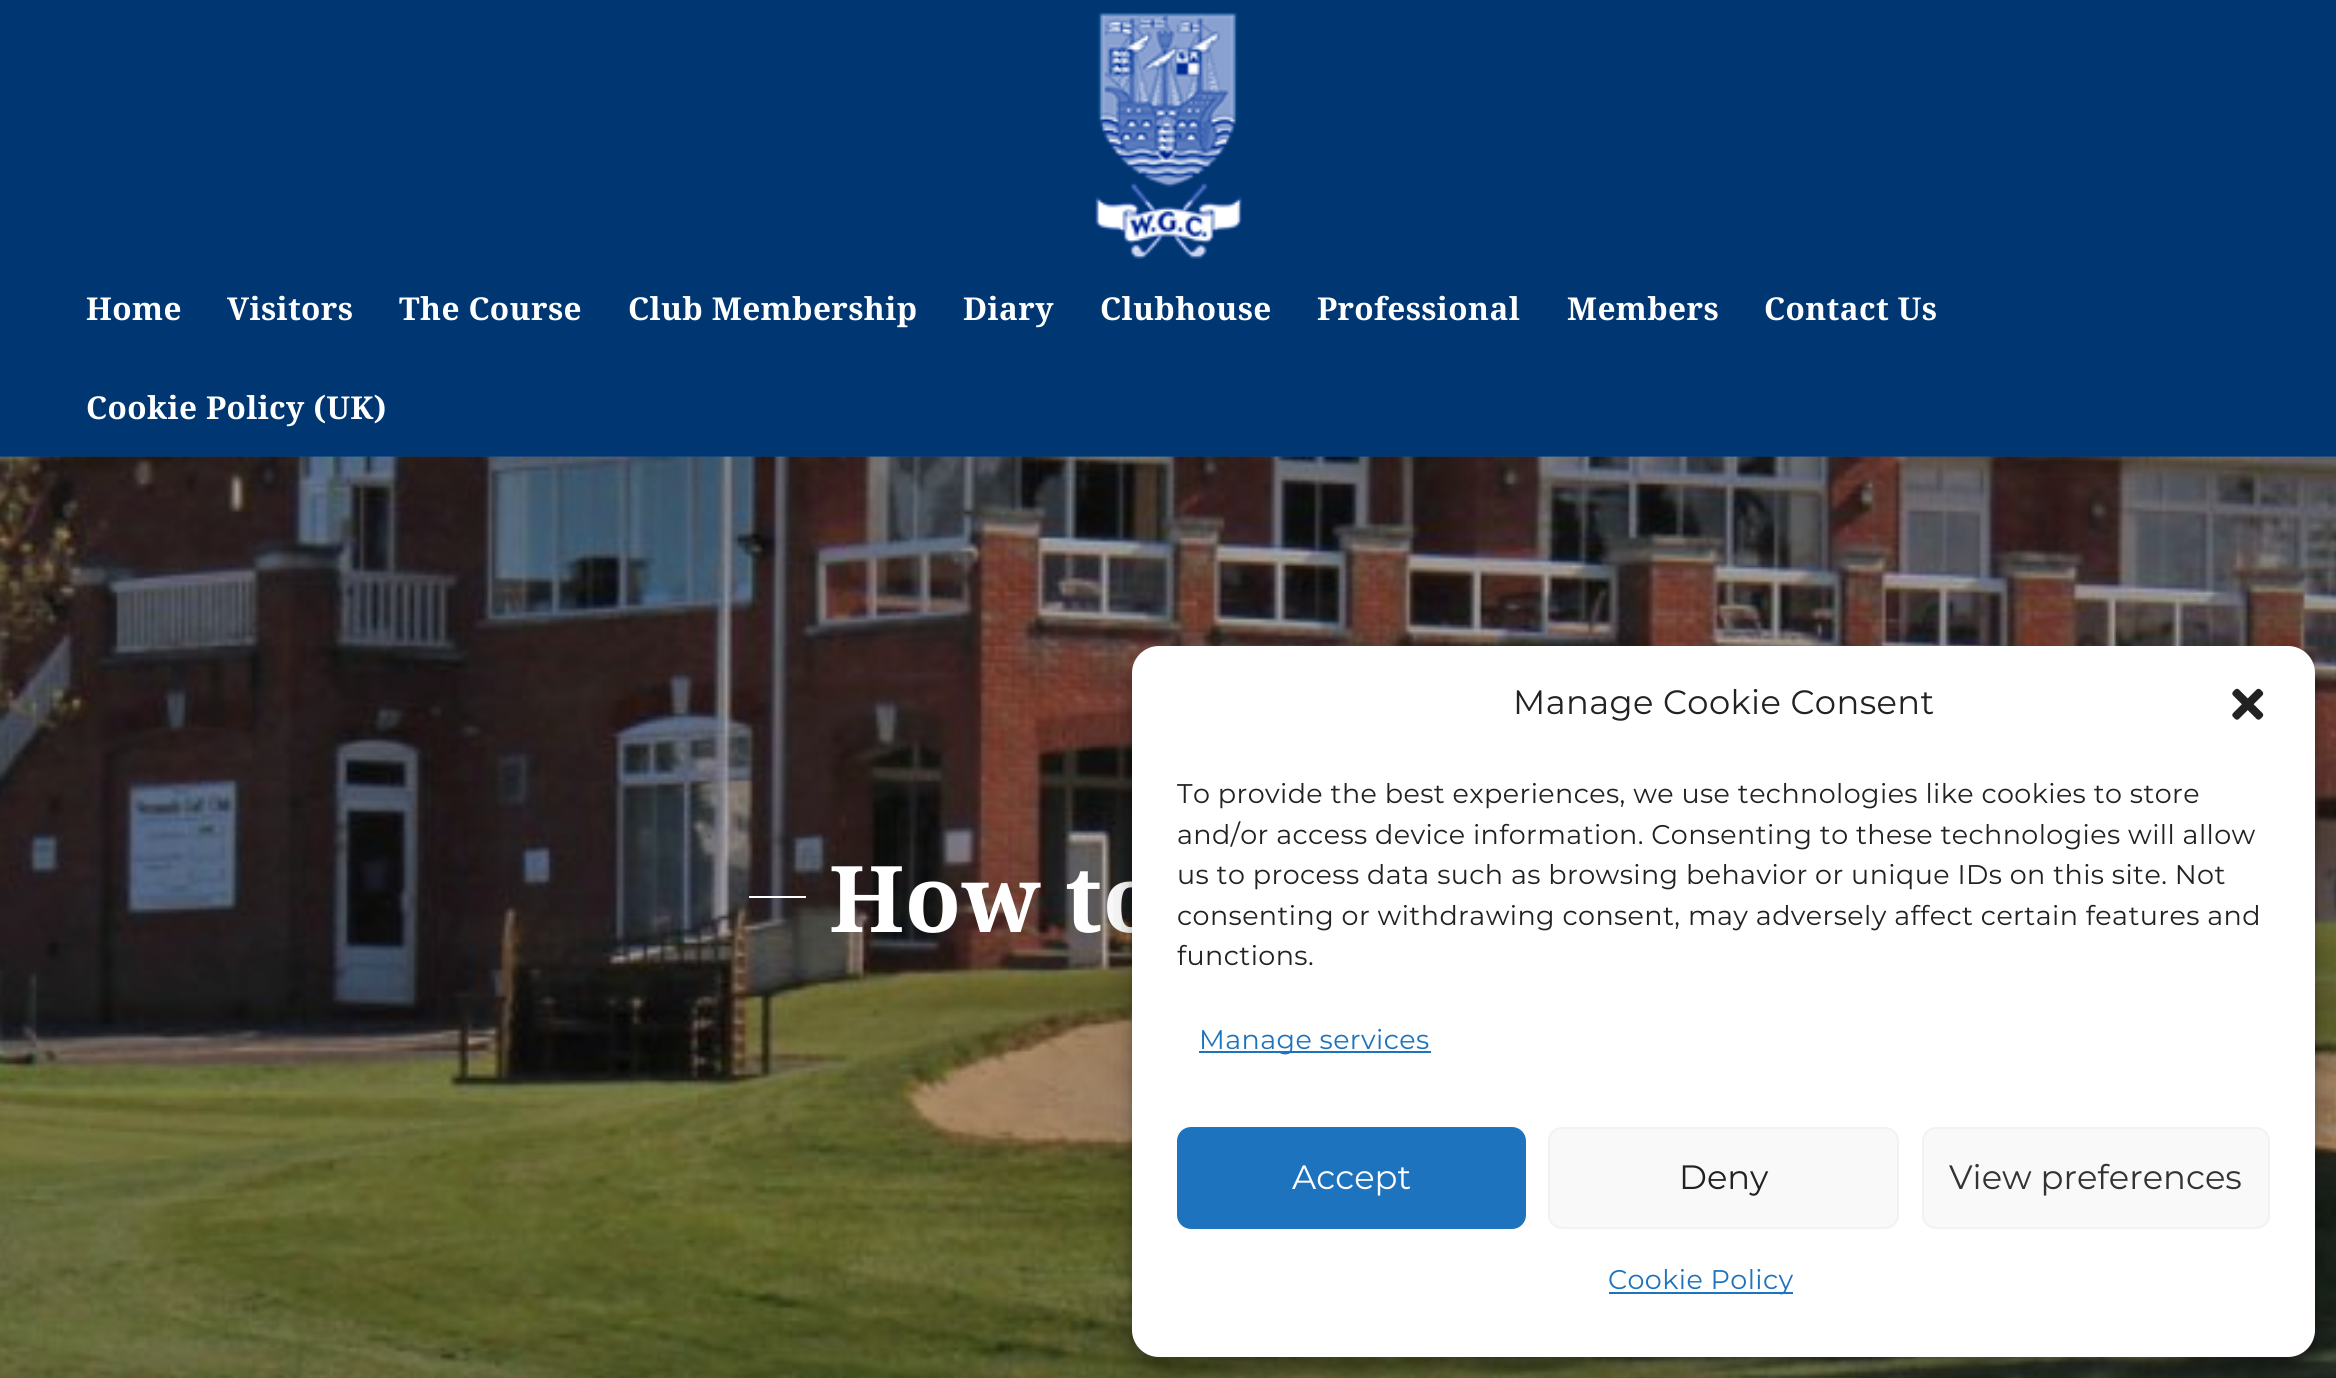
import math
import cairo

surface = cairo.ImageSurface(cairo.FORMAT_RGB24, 2336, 1378)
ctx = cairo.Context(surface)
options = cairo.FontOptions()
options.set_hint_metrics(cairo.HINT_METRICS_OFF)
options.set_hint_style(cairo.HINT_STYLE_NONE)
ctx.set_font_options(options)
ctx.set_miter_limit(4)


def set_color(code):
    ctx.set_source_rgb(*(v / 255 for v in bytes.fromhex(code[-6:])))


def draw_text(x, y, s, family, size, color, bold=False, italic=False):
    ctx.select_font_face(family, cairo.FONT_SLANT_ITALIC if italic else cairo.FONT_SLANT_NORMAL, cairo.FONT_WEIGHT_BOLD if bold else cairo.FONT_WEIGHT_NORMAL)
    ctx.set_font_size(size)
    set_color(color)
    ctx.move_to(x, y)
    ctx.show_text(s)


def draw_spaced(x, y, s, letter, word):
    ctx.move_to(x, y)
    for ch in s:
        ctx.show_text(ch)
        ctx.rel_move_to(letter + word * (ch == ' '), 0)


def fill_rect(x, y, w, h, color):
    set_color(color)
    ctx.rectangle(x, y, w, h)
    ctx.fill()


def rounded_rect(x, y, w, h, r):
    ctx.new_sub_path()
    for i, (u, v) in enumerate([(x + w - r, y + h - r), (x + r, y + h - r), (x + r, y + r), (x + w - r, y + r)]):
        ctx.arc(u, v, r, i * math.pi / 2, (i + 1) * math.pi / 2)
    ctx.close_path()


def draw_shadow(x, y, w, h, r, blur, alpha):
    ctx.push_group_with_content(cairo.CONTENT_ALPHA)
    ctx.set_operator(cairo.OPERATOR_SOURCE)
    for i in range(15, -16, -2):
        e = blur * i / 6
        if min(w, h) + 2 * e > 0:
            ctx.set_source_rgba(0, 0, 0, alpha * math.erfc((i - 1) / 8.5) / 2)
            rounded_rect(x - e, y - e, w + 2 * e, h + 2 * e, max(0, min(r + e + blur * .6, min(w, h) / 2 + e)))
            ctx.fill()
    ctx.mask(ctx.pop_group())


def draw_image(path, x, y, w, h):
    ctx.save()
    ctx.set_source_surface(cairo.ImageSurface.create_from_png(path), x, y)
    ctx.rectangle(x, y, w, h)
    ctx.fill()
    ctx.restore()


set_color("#003772")
ctx.paint()
draw_image("assets/img1.png", 1095, 12, 147, 247)
ctx.select_font_face("Noto Serif", cairo.FONT_SLANT_NORMAL, cairo.FONT_WEIGHT_BOLD)
ctx.set_font_size(31.5)
set_color("#ffffff")
draw_spaced(86, 320, "Home", 0.4, 0)
draw_spaced(227, 320, "Visitors", 0.4, 0)
draw_spaced(399, 320, "The Course", 0.4, 0)
draw_spaced(628, 320, "Club Membership", 0.4, 0)
draw_spaced(963, 320, "Diary", 0.4, 0)
draw_spaced(1100, 320, "Clubhouse", 0.4, 0)
draw_spaced(1317, 320, "Professional", 0.4, 0)
draw_spaced(1567, 320, "Members", 0.4, 0)
draw_spaced(1764, 320, "Contact Us", 0.4, 0)
draw_spaced(86, 419, "Cookie Policy (UK)", 0.4, 0)
draw_image("assets/img2.png", 0, 456, 2336, 922)
fill_rect(749, 896, 57, 2, "#ffffff")
ctx.set_font_size(92)
draw_spaced(829, 932, "How to", 0.4, 0)
set_color("#000000")
draw_shadow(1132, 659, 1183, 711, 27, 7, 0.23)
draw_shadow(1132, 668, 1183, 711, 27, 22.5, 0.19)
set_color("#ffffff")
rounded_rect(1132, 646, 1183, 711, 27)
ctx.fill()
ctx.select_font_face("Montserrat")
ctx.set_font_size(33.75)
set_color("#222222")
draw_spaced(1513, 714, "Manage Cookie Consent", 0.4, 0)
draw_image("assets/img3.png", 2232, 688, 32, 32)
ctx.set_font_size(27)
draw_spaced(1177, 803, "To provide the best experiences, we use technologies like cookies to store", 0.4, 0)
draw_spaced(1177, 844, "and/or access device information. Consenting to these technologies will allow", 0.4, 0)
draw_spaced(1177, 884, "us to process data such as browsing behavior or unique IDs on this site. Not", 0.4, 0)
draw_spaced(1177, 925, "consenting or withdrawing consent, may adversely affect certain features and", 0.4, 0)
draw_spaced(1177, 965, "functions.", 0.4, 0)
fill_rect(1199, 1051, 232, 2, "#1e73be")
draw_spaced(1199, 1049, "Manage services", 0.4, 0)
rounded_rect(1178, 1128, 347, 100, 13)
ctx.fill_preserve()
ctx.stroke()
draw_text(1292, 1189, "Accept", "Montserrat", 33.75, "#ffffff")
set_color("#f9f9f9")
rounded_rect(1549, 1128, 349, 100, 13)
ctx.fill_preserve()
set_color("#f2f2f2")
ctx.stroke()
draw_text(1679, 1189, "Deny", "Montserrat", 33.75, "#222222")
set_color("#f9f9f9")
rounded_rect(1923, 1128, 346, 100, 13)
ctx.fill_preserve()
set_color("#f2f2f2")
ctx.stroke()
draw_text(1949, 1189, "View preferences", "Montserrat", 33.75, "#333333")
fill_rect(1609, 1292, 184, 2, "#1e73be")
ctx.set_font_size(27)
draw_spaced(1608, 1289, "Cookie Policy", 0.4, 0)
surface.write_to_png("output.png")
